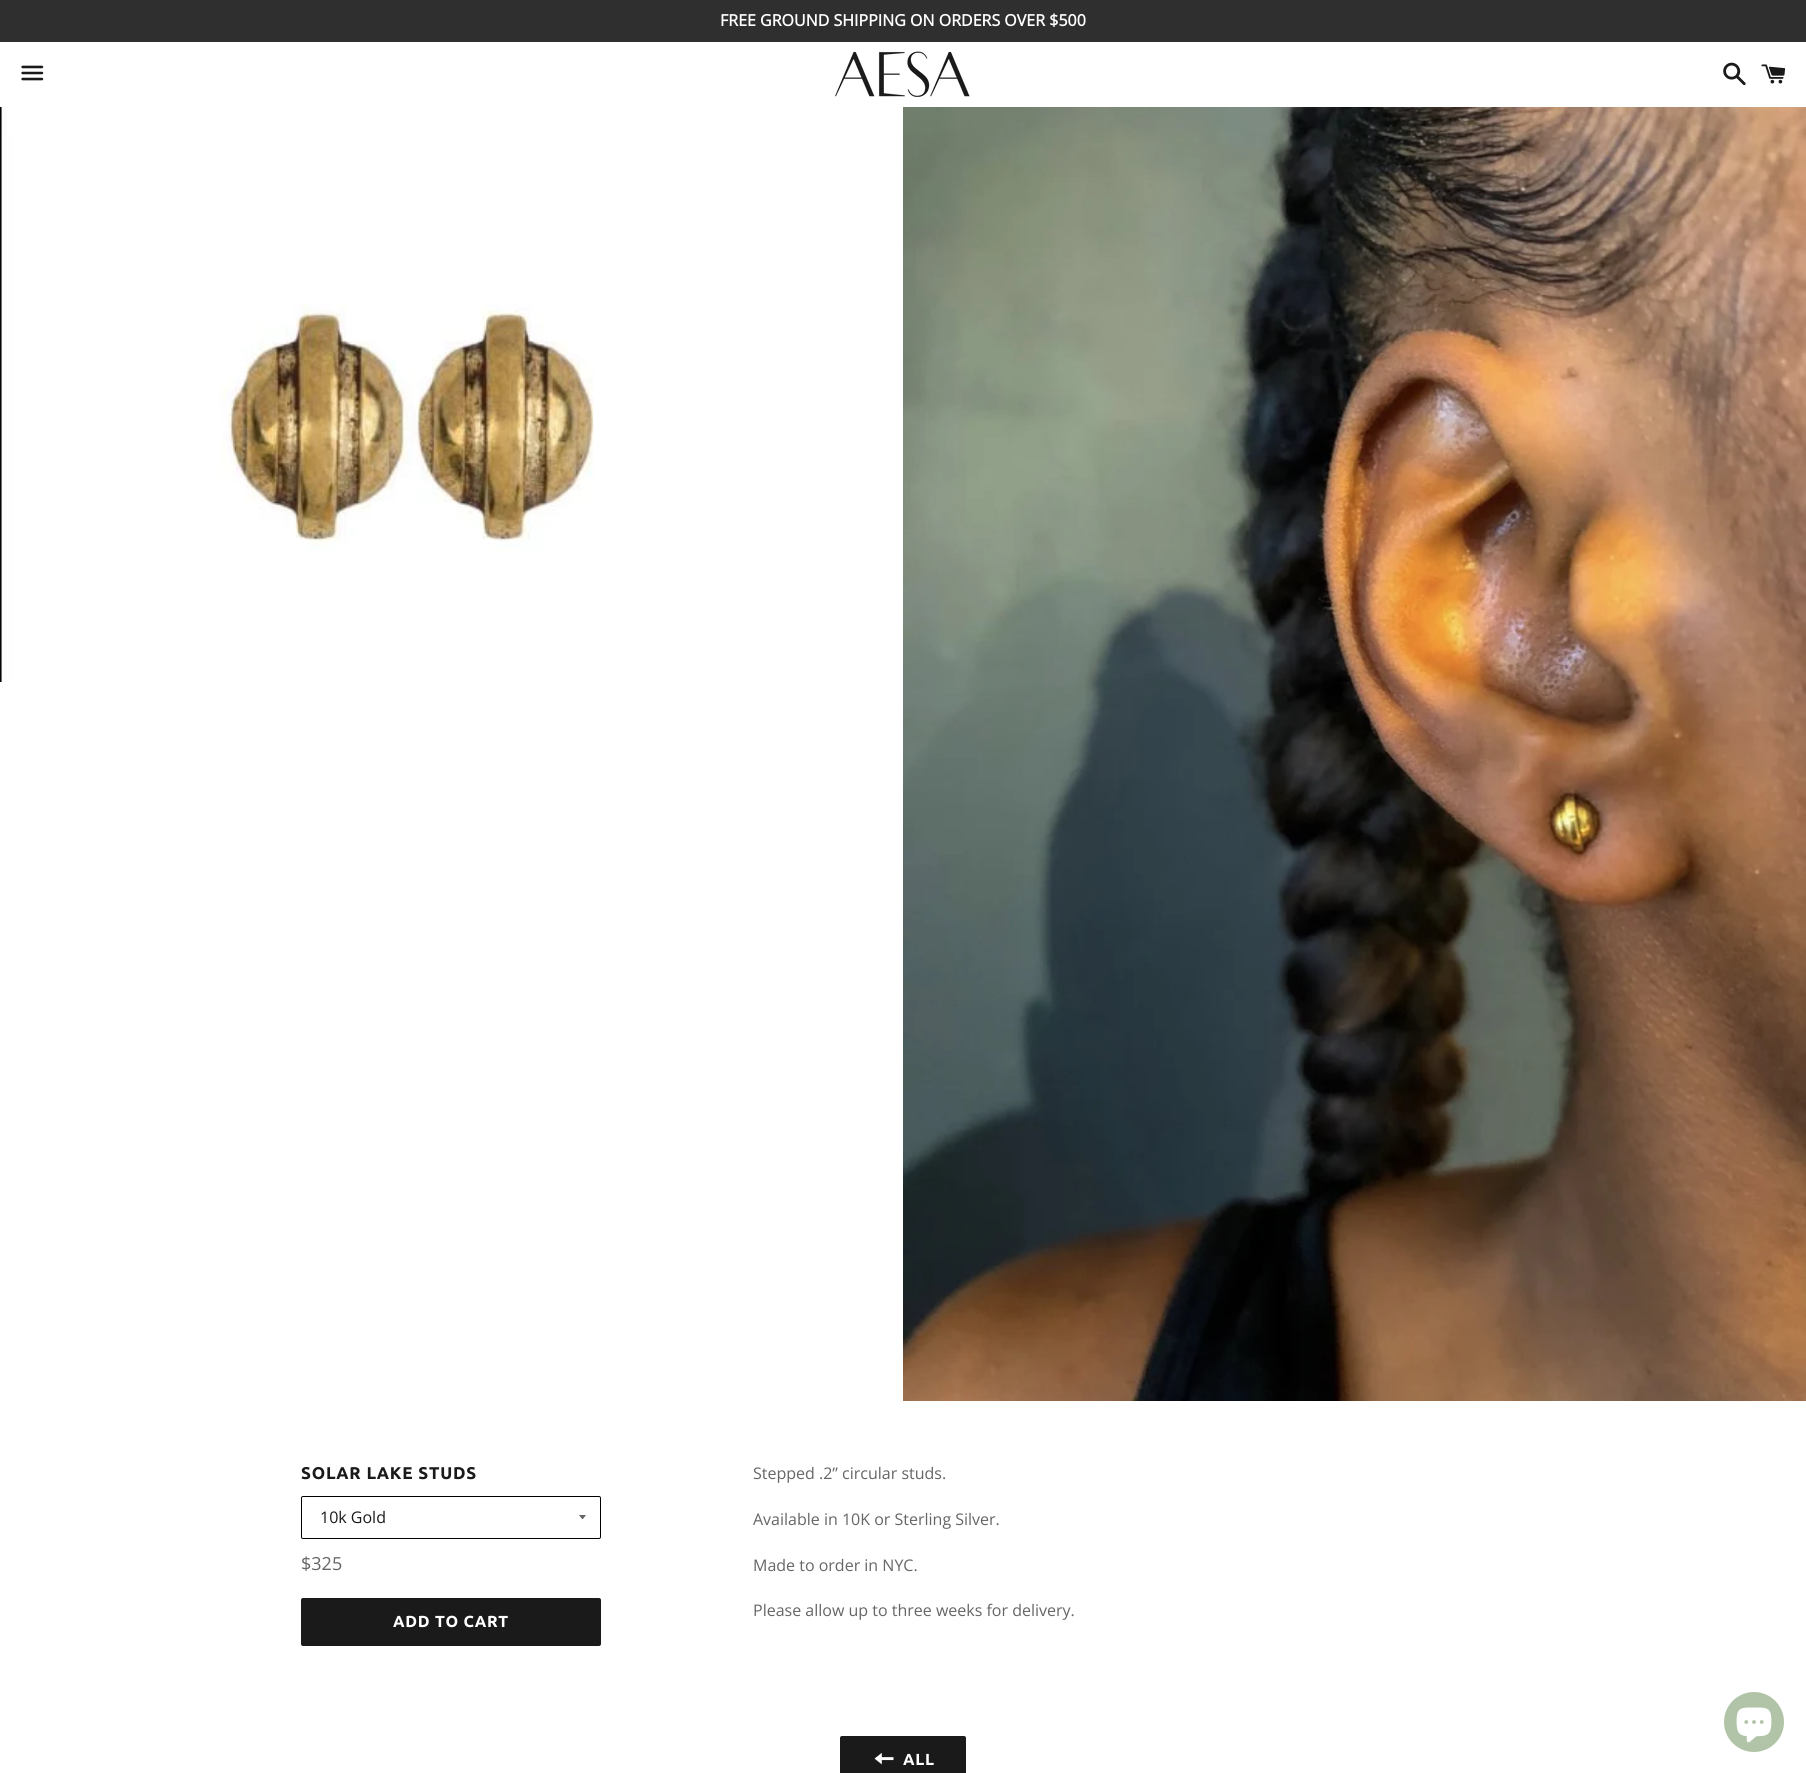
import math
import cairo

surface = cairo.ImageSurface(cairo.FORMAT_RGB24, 1806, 1773)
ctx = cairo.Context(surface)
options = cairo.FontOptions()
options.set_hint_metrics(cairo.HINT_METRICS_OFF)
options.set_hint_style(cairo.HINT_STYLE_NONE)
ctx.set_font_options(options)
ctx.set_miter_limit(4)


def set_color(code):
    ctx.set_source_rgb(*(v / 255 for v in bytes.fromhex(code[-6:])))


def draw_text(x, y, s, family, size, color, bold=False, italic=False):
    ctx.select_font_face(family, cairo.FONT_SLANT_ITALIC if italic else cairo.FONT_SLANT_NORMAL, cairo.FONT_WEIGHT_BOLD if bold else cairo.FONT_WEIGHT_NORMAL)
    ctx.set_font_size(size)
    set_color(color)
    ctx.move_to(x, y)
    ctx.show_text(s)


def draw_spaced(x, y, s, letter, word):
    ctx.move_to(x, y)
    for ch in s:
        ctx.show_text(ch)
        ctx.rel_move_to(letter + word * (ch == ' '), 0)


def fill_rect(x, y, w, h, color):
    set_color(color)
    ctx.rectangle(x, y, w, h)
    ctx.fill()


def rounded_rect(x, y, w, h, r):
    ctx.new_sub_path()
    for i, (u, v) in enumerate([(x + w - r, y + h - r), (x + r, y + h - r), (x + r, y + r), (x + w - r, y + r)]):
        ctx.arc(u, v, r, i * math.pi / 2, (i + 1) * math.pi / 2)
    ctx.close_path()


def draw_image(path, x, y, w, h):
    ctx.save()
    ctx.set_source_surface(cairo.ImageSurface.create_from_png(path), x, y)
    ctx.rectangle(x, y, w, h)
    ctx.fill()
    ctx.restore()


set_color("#ffffff")
ctx.paint()
fill_rect(0, 0, 1806, 42, "#2f2f2f")
draw_text(720, 26, "FREE GROUND SHIPPING ON ORDERS OVER $500", "Open Sans", 16, "#ffffff", bold=True)
draw_image("assets/img1.png", 21, 65, 23, 16)
draw_image("assets/img2.png", 835, 51, 135, 46)
draw_image("assets/img3.png", 1723, 62, 23, 24)
draw_image("assets/img4.png", 1761, 64, 25, 20)
draw_image("assets/img5.png", 0, 107, 594, 575)
draw_image("assets/img6.png", 903, 107, 903, 1294)
ctx.select_font_face("Ubuntu", cairo.FONT_SLANT_NORMAL, cairo.FONT_WEIGHT_BOLD)
ctx.set_font_size(17)
set_color("#1a1a1a")
draw_spaced(301, 1479, "SOLAR LAKE STUDS", 0.8, 0)
rounded_rect(301.5, 1496.5, 299, 42, 1.5)
set_color("#000000")
ctx.set_line_width(1)
ctx.stroke()
set_color("#666666")
ctx.new_path()
ctx.move_to(579, 1515)
ctx.curve_to(583.5, 1520.5, 581.5, 1520.5, 586, 1515)
ctx.close_path()
ctx.fill()
draw_text(320, 1523, "10k Gold", "Open Sans", 16, "#1a1a1a")
draw_text(301, 1570, "$325", "Open Sans", 18, "#666666")
set_color("#1a1a1a")
rounded_rect(301, 1598, 300, 48, 2)
ctx.fill()
ctx.select_font_face("Ubuntu", cairo.FONT_SLANT_NORMAL, cairo.FONT_WEIGHT_BOLD)
ctx.set_font_size(16)
set_color("#ffffff")
draw_spaced(393, 1627, "ADD TO CART", 0.75, 0)
draw_text(753, 1479, "Stepped .2” circular studs.", "Open Sans", 16, "#666666")
draw_text(753, 1525, "Available in 10K or Sterling Silver.", "Open Sans", 16, "#666666")
draw_text(753, 1571, "Made to order in NYC.", "Open Sans", 16, "#666666")
draw_text(753, 1616, "Please allow up to three weeks for delivery.", "Open Sans", 16, "#666666")
set_color("#1a1a1a")
rounded_rect(840, 1736, 126, 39, 2)
ctx.fill()
draw_image("assets/img7.png", 874, 1752, 20, 13)
ctx.select_font_face("Ubuntu", cairo.FONT_SLANT_NORMAL, cairo.FONT_WEIGHT_BOLD)
set_color("#ffffff")
draw_spaced(903, 1765, "ALL", 0.75, 0)
set_color("#b2c4a8")
ctx.new_path()
ctx.arc(1754, 1722, 30, 0, 2 * math.pi)
ctx.fill()
draw_image("assets/img8.png", 1736, 1707, 36, 36)
surface.write_to_png("output.png")
